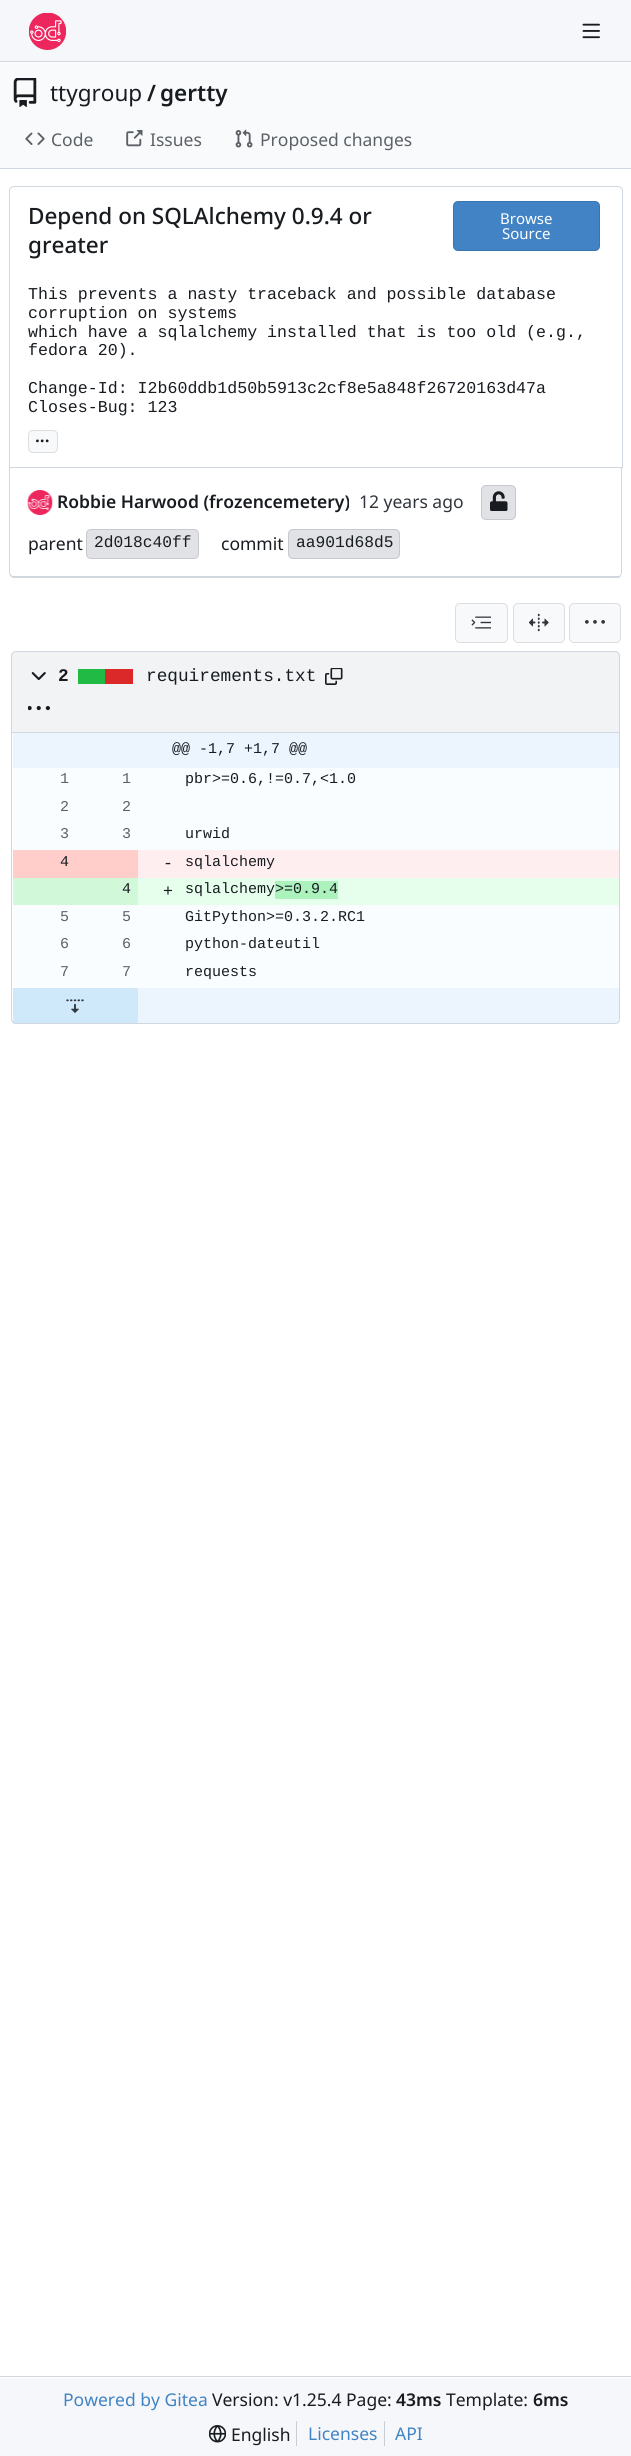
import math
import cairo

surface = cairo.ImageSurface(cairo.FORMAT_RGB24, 631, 2456)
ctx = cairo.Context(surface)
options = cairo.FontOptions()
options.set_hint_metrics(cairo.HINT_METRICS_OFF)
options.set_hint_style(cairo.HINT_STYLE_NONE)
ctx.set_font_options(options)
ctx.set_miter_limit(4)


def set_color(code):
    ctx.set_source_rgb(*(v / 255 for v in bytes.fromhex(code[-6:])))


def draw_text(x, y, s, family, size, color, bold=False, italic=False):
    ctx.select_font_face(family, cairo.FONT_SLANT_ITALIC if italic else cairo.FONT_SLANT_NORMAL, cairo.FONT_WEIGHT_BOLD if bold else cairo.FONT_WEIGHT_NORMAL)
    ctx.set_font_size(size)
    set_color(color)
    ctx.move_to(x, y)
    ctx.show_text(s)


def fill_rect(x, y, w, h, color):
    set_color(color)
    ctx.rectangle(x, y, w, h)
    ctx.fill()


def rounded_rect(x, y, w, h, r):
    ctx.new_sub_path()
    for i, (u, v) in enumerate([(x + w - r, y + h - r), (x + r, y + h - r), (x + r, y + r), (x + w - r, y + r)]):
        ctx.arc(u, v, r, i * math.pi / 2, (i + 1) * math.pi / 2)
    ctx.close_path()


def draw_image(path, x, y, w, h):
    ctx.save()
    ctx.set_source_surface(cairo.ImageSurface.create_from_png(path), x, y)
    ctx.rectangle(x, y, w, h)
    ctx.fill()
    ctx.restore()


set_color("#ffffff")
ctx.paint()
fill_rect(0, 0, 631, 61, "#f6f7fa")
fill_rect(0, 61, 631, 1, "#d0d7de")
draw_image("assets/img1.png", 29, 13, 37, 37)
draw_image("assets/img2.png", 582, 23, 18, 16)
fill_rect(0, 63, 631, 105, "#f9fafb")
draw_image("assets/img3.png", 13, 78, 24, 29)
draw_text(50, 101, "ttygroup", "Noto Sans", 22.5, "#181c21")
draw_text(147, 101, "/", "Noto Sans SemiBold", 22.5, "#181c21")
draw_text(160, 101, "gertty", "Noto Sans SemiBold", 22.5, "#181c21")
draw_image("assets/img4.png", 25, 132, 20, 13)
draw_text(51, 146, "Code", "Noto Sans", 17.5, "#5b6167")
draw_image("assets/img5.png", 126, 130, 17, 17)
draw_text(150, 146, "Issues", "Noto Sans", 17.5, "#5b6167")
draw_image("assets/img6.png", 235, 129, 18, 19)
draw_text(260, 146, "Proposed changes", "Noto Sans", 17.5, "#5b6167")
fill_rect(0, 168, 631, 1, "#d0d7de")
ctx.new_path()
ctx.move_to(14, 186.5)
ctx.line_to(618, 186.5)
ctx.curve_to(620.5, 186.5, 622.5, 188.5, 622.5, 191)
ctx.line_to(622.5, 467.5)
ctx.line_to(9.5, 467.5)
ctx.line_to(9.5, 191)
ctx.curve_to(9.5, 188.5, 11.5, 186.5, 14, 186.5)
ctx.close_path()
ctx.set_line_width(1)
ctx.stroke()
draw_text(28, 224, "Depend on SQLAlchemy 0.9.4 or", "Noto Sans Medium", 22.5, "#181c21")
draw_text(28, 253, "greater", "Noto Sans Medium", 22.5, "#181c21")
set_color("#4183c4")
rounded_rect(453, 201, 147, 50, 5)
ctx.fill()
rounded_rect(453.5, 201.5, 146, 49, 4.5)
ctx.set_source_rgba(0, 0, 0.09, 0.11)
ctx.stroke()
draw_text(500, 224, "Browse", "Noto Sans", 15, "#ffffff")
draw_text(502, 239, "Source", "Noto Sans", 15, "#ffffff")
draw_text(28, 299, "This prevents a nasty traceback and possible database", "Liberation Mono", 16.6, "#181c21")
draw_text(28, 318, "corruption on systems", "Liberation Mono", 16.6, "#181c21")
draw_text(28, 337, "which have a sqlalchemy installed that is too old (e.g.,", "Liberation Mono", 16.6, "#181c21")
draw_text(28, 355, "fedora 20).", "Liberation Mono", 16.6, "#181c21")
draw_text(28, 393, "Change-Id: I2b60ddb1d50b5913c2cf8e5a848f26720163d47a", "Liberation Mono", 16.6, "#181c21")
draw_text(28, 412, "Closes-Bug: 123", "Liberation Mono", 16.6, "#181c21")
set_color("#f8f9fb")
rounded_rect(28, 430, 30, 23, 5)
ctx.fill()
rounded_rect(28.5, 430.5, 29, 22, 4.5)
ctx.set_source_rgba(0, 0, 0.09, 0.11)
ctx.stroke()
draw_text(35, 442, "...", "Noto Sans SemiBold", 17.5, "#181c21")
set_color("#d0d7de")
ctx.set_fill_rule(cairo.FILL_RULE_EVEN_ODD)
ctx.new_path()
ctx.move_to(9, 468)
ctx.line_to(622, 468)
ctx.line_to(622, 572)
ctx.curve_to(622, 575, 620, 578, 618, 578)
ctx.line_to(14, 578)
ctx.curve_to(11, 578, 9, 575, 9, 572)
ctx.close_path()
ctx.move_to(10, 468)
ctx.line_to(621, 468)
ctx.line_to(621, 572)
ctx.curve_to(621, 575, 620, 576, 618, 576)
ctx.line_to(14, 576)
ctx.curve_to(12, 576, 10, 575, 10, 572)
ctx.close_path()
ctx.fill()
draw_image("assets/img7.png", 27, 490, 26, 25)
draw_text(57, 508, "Robbie Harwood (frozencemetery)", "Noto Sans SemiBold", 17.5, "#181c21")
draw_text(359, 508, "12 years ago", "Noto Sans", 17.5, "#30363b")
set_color("#e0e2e5")
rounded_rect(481, 485, 35, 35, 5)
ctx.fill()
rounded_rect(481.5, 485.5, 34, 34, 4.5)
ctx.set_source_rgba(0, 0, 0.09, 0.11)
ctx.stroke()
draw_image("assets/img8.png", 490, 491, 18, 20)
draw_text(28, 550, "parent", "Noto Sans", 17.5, "#181c21")
set_color("#e0e2e5")
rounded_rect(86, 529, 113, 30, 5)
ctx.fill()
rounded_rect(86.5, 529.5, 112, 29, 4.5)
ctx.set_source_rgba(0, 0, 0.09, 0.11)
ctx.stroke()
draw_text(94, 547, "2d018c40ff", "Liberation Mono", 16.25, "#181c21")
draw_text(221, 550, "commit", "Noto Sans", 17.5, "#181c21")
set_color("#e0e2e5")
rounded_rect(288, 529, 112, 30, 5)
ctx.fill()
rounded_rect(288.5, 529.5, 111, 29, 4.5)
ctx.set_source_rgba(0, 0, 0.09, 0.11)
ctx.stroke()
draw_text(296, 547, "aa901d68d5", "Liberation Mono", 16.25, "#181c21")
set_color("#f8f9fb")
rounded_rect(455, 603, 53, 40, 5)
ctx.fill()
rounded_rect(455.5, 603.5, 52, 39, 4.5)
ctx.set_source_rgba(0, 0, 0.09, 0.11)
ctx.stroke()
draw_image("assets/img9.png", 471, 616, 20, 13)
set_color("#f8f9fb")
rounded_rect(513, 603, 52, 40, 5)
ctx.fill()
rounded_rect(513.5, 603.5, 51, 39, 4.5)
ctx.set_source_rgba(0, 0, 0.09, 0.11)
ctx.stroke()
draw_image("assets/img10.png", 529, 613, 20, 19)
set_color("#f8f9fb")
rounded_rect(569, 603, 52, 40, 5)
ctx.fill()
rounded_rect(569.5, 603.5, 51, 39, 4.5)
ctx.set_source_rgba(0, 0, 0.09, 0.11)
ctx.stroke()
draw_image("assets/img11.png", 585, 620, 20, 4)
set_color("#d0d7de")
ctx.new_path()
ctx.move_to(11, 732)
ctx.line_to(620, 732)
ctx.line_to(620, 1019)
ctx.curve_to(620, 1022, 618, 1024, 615, 1024)
ctx.line_to(16, 1024)
ctx.curve_to(13, 1024, 11, 1022, 11, 1019)
ctx.close_path()
ctx.move_to(12, 732)
ctx.line_to(619, 732)
ctx.line_to(619, 1019)
ctx.curve_to(619, 1021, 617, 1022, 615, 1022)
ctx.line_to(16, 1022)
ctx.curve_to(14, 1022, 12, 1021, 12, 1019)
ctx.close_path()
ctx.fill()
set_color("#ffffff")
ctx.new_path()
ctx.move_to(16, 649)
ctx.curve_to(13, 649, 10, 652, 10, 655)
ctx.line_to(10, 733)
ctx.line_to(621, 733)
ctx.line_to(621, 655)
ctx.curve_to(621, 652, 618, 649, 615, 649)
ctx.close_path()
ctx.move_to(16, 651)
ctx.curve_to(13, 651, 11, 653, 11, 656)
ctx.line_to(11, 732)
ctx.line_to(620, 732)
ctx.line_to(620, 656)
ctx.curve_to(620, 653, 618, 651, 615, 651)
ctx.close_path()
ctx.fill()
set_color("#f1f3f5")
ctx.new_path()
ctx.move_to(16, 651.5)
ctx.line_to(615, 651.5)
ctx.curve_to(617.5, 651.5, 619.5, 653.5, 619.5, 656)
ctx.line_to(619.5, 732.5)
ctx.line_to(11.5, 732.5)
ctx.line_to(11.5, 656)
ctx.curve_to(11.5, 653.5, 13.5, 651.5, 16, 651.5)
ctx.close_path()
ctx.fill_preserve()
set_color("#d0d7de")
ctx.stroke()
draw_image("assets/img12.png", 31, 672, 15, 9)
draw_text(58, 681, "2", "Liberation Mono", 17.75, "#181c21", bold=True)
fill_rect(105, 669, 28, 15, "#db2828")
fill_rect(78, 669, 27, 15, "#21ba45")
draw_text(146, 681, "requirements.txt", "Liberation Mono", 17.75, "#181c21")
draw_image("assets/img13.png", 325, 668, 18, 17)
draw_image("assets/img14.png", 28, 706, 22, 5)
set_color("#fafdff")
rounded_rect(13, 733, 606, 290, 5)
ctx.fill()
fill_rect(13, 733, 606, 35, "#ecf5fd")
draw_text(172, 753, "@@ -1,7 +1,7 @@", "Liberation Mono", 15, "#181c21")
draw_text(60, 783, "1", "Liberation Mono", 15, "#5b6167")
draw_text(122, 783, "1", "Liberation Mono", 15, "#5b6167")
draw_text(185, 783, "pbr>=0.6,!=0.7,<1.0", "Liberation Mono", 15, "#181c21")
draw_text(60, 811, "2", "Liberation Mono", 15, "#5b6167")
draw_text(122, 811, "2", "Liberation Mono", 15, "#5b6167")
draw_text(60, 838, "3", "Liberation Mono", 15, "#5b6167")
draw_text(122, 838, "3", "Liberation Mono", 15, "#5b6167")
draw_text(185, 838, "urwid", "Liberation Mono", 15, "#181c21")
fill_rect(138, 850, 481, 28, "#ffeef0")
fill_rect(13, 850, 125, 28, "#ffcecb")
draw_text(60, 866, "4", "Liberation Mono", 15, "#181c21")
draw_text(163, 868, "-", "Liberation Mono", 16.6, "#181c21")
draw_text(185, 866, "sqlalchemy", "Liberation Mono", 15, "#181c21")
fill_rect(138, 878, 481, 27, "#e6ffed")
fill_rect(13, 878, 125, 27, "#d1f8d9")
draw_text(185, 893, "sqlalchemy", "Liberation Mono", 15, "#181c21")
fill_rect(275, 881, 63, 18, "#acf2bd")
draw_text(275, 893, ">=0.9.4", "Liberation Mono", 15, "#181c21")
draw_text(122, 893, "4", "Liberation Mono", 15, "#181c21")
draw_text(163, 896, "+", "Liberation Mono", 16.6, "#181c21")
draw_text(60, 921, "5", "Liberation Mono", 15, "#5b6167")
draw_text(122, 921, "5", "Liberation Mono", 15, "#5b6167")
draw_text(185, 921, "GitPython>=0.3.2.RC1", "Liberation Mono", 15, "#181c21")
draw_text(60, 948, "6", "Liberation Mono", 15, "#5b6167")
draw_text(122, 948, "6", "Liberation Mono", 15, "#5b6167")
draw_text(185, 948, "python-dateutil", "Liberation Mono", 15, "#181c21")
draw_text(60, 976, "7", "Liberation Mono", 15, "#5b6167")
draw_text(122, 976, "7", "Liberation Mono", 15, "#5b6167")
draw_text(185, 976, "requests", "Liberation Mono", 15, "#181c21")
set_color("#cfe8fa")
ctx.new_path()
ctx.move_to(13, 988)
ctx.line_to(138, 988)
ctx.line_to(138, 1023)
ctx.line_to(17, 1023)
ctx.curve_to(15, 1023, 13, 1021, 13, 1019)
ctx.close_path()
ctx.fill()
draw_image("assets/img15.png", 66, 999, 18, 14)
fill_rect(138, 988, 35, 35, "#ecf5fd")
ctx.new_path()
ctx.move_to(173, 988)
ctx.line_to(619, 988)
ctx.line_to(619, 1019)
ctx.curve_to(619, 1021, 617, 1023, 615, 1023)
ctx.line_to(173, 1023)
ctx.close_path()
ctx.fill()
fill_rect(0, 2378, 631, 78, "#f6f7fa")
fill_rect(0, 2376, 631, 1, "#d0d7de")
draw_text(63, 2406, "Powered by Gitea", "Noto Sans", 17.5, "#4183c4")
draw_text(212, 2406, "Version: v1.25.4 Page:", "Noto Sans", 17.5, "#181c21")
draw_text(396, 2406, "43ms", "Noto Sans SemiBold", 17.5, "#181c21")
draw_text(446, 2406, "Template:", "Noto Sans", 17.5, "#181c21")
draw_text(533, 2406, "6ms", "Noto Sans SemiBold", 17.5, "#181c21")
draw_image("assets/img16.png", 209, 2425, 17, 18)
draw_text(231, 2441, "English", "Noto Sans", 17.5, "#181c21")
fill_rect(296, 2421, 1, 25, "#c7ced5")
draw_text(308, 2440, "Licenses", "Noto Sans", 17.5, "#4183c4")
fill_rect(384, 2421, 1, 25, "#c7ced5")
draw_text(395, 2440, "API", "Noto Sans", 17.5, "#4183c4")
surface.write_to_png("output.png")
